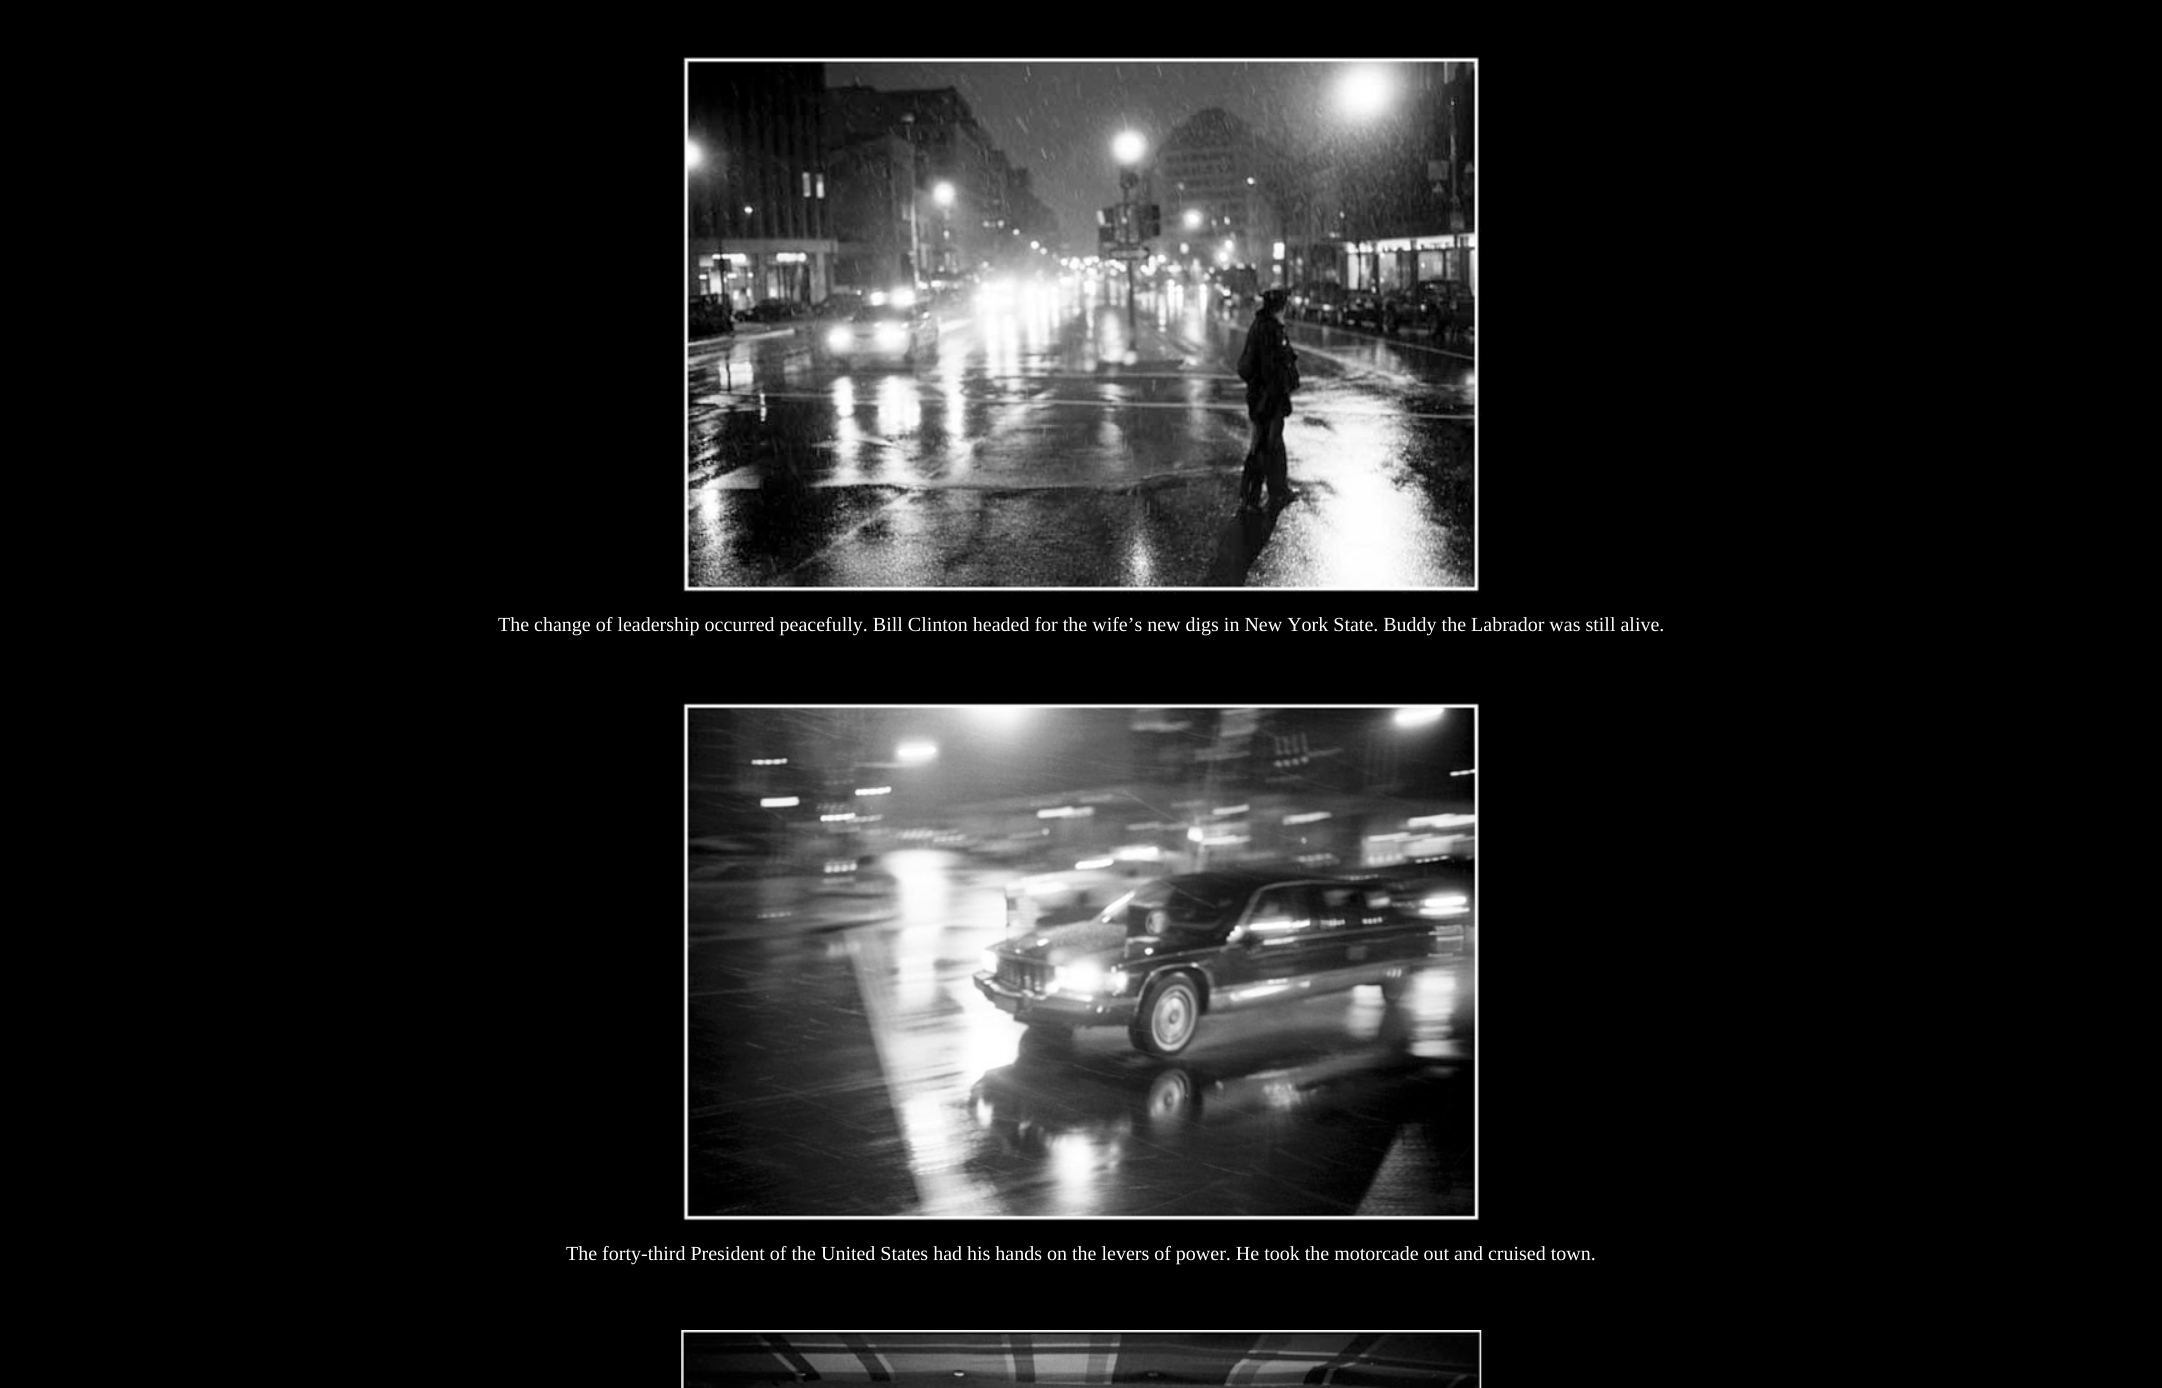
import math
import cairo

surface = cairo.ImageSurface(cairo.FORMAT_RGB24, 2162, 1388)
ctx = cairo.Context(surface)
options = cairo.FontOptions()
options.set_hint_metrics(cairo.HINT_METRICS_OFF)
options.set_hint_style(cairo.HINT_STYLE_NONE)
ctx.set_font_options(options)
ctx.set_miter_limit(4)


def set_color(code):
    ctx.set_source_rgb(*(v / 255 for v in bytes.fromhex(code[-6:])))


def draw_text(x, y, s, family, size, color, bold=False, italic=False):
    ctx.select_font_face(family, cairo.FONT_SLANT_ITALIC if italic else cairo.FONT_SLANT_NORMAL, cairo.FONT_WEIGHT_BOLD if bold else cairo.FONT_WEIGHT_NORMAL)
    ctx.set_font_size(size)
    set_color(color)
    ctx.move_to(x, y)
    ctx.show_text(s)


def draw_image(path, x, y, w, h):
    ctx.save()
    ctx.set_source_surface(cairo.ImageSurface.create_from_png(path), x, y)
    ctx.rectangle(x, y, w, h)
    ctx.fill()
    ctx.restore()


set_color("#000000")
ctx.paint()
draw_image("assets/img1.png", 681, 55, 800, 539)
draw_text(498, 631, "The change of leadership occurred peacefully. Bill Clinton headed for the wife’s new digs in New York State. Buddy the Labrador was still alive.", "Liberation Serif", 20, "#ffffff")
draw_image("assets/img2.png", 683, 703, 796, 518)
draw_text(566, 1260, "The forty-third President of the United States had his hands on the levers of power. He took the motorcade out and cruised town.", "Liberation Serif", 20, "#ffffff")
draw_image("assets/img3.png", 681, 1330, 801, 58)
surface.write_to_png("output.png")
